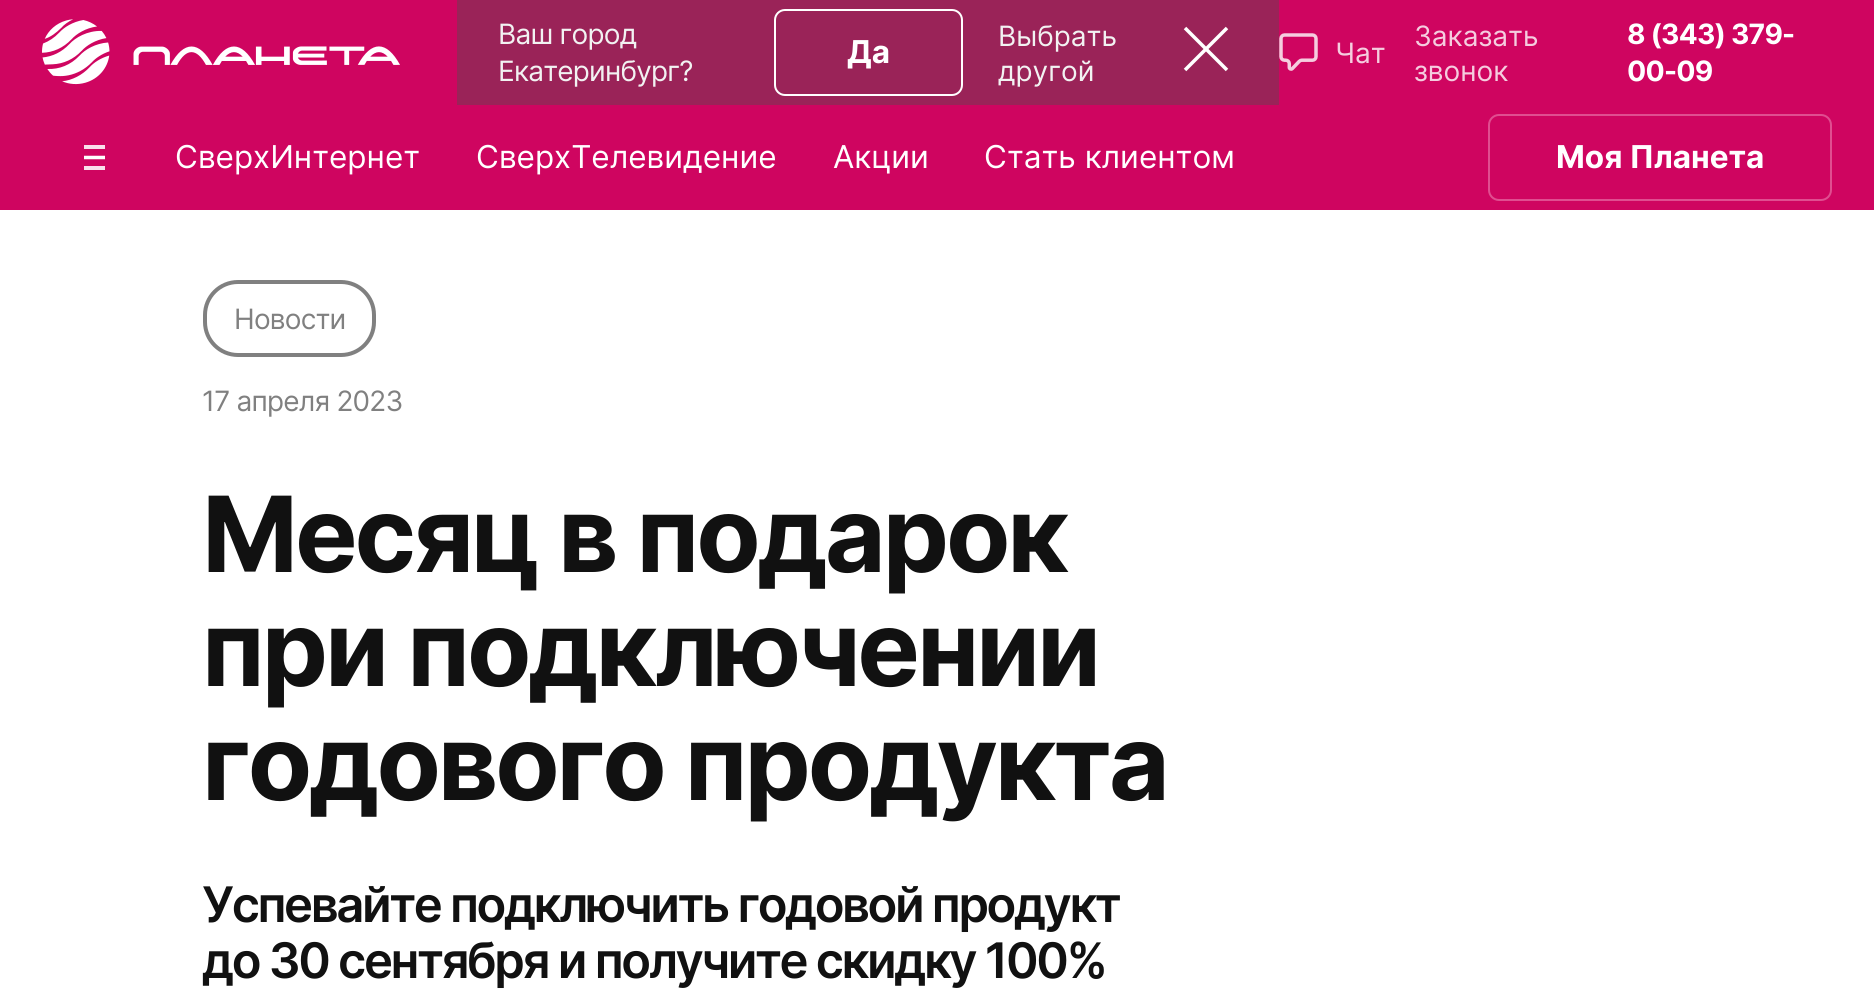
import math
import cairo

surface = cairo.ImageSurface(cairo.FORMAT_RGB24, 1874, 998)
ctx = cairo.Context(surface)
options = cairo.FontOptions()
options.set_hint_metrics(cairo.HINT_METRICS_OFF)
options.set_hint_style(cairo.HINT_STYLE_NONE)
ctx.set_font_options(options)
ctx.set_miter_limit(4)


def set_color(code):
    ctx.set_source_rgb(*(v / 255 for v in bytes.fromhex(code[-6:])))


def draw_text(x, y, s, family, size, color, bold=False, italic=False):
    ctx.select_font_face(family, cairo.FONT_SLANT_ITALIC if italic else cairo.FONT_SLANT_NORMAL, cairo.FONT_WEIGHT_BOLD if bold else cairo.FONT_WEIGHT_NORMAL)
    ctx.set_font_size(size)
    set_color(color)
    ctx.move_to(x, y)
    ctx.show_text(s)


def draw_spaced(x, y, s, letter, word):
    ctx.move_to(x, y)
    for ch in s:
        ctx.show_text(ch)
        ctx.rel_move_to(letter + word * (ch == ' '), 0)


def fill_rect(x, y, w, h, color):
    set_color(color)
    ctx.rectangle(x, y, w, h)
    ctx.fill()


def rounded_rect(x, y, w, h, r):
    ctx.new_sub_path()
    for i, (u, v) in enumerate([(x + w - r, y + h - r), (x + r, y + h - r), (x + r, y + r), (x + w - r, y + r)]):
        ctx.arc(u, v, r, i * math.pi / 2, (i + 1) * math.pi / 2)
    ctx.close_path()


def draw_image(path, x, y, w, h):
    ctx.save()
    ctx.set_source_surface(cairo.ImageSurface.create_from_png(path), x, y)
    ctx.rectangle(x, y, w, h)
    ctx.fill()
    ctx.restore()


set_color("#ffffff")
ctx.paint()
fill_rect(0, 0, 1874, 210, "#cf0560")
draw_image("assets/img1.png", 42, 19, 358, 66)
fill_rect(457, 0, 822, 105, "#9a2358")
ctx.select_font_face("Inter")
ctx.set_font_size(28)
set_color("#f2f2f2")
draw_spaced(498, 44, "Ваш город", -0.8, 0)
draw_spaced(498, 81, "Екатеринбург?", -0.8, 0)
rounded_rect(775, 10, 187, 85, 10)
set_color("#ffffff")
ctx.stroke()
draw_text(847, 63, "Да", "Inter", 31.5, "#ffffff", bold=True)
draw_text(998, 46, "Выбрать", "Inter", 28, "#f2f2f2")
draw_text(998, 81, "другой", "Inter", 28, "#f2f2f2")
ctx.new_path()
ctx.move_to(1185, 28)
ctx.line_to(1227, 70)
ctx.move_to(1185, 70)
ctx.line_to(1227, 28)
set_color("#ffffff")
ctx.set_line_width(3.5)
ctx.stroke()
draw_image("assets/img2.png", 1279, 33, 39, 38)
draw_text(1335, 63, "Чат", "Inter", 28, "#f5cddf")
draw_text(1414, 46, "Заказать", "Inter", 28, "#f5cddf")
draw_text(1414, 81, "звонок", "Inter", 28, "#f5cddf")
ctx.select_font_face("Inter", cairo.FONT_SLANT_NORMAL, cairo.FONT_WEIGHT_BOLD)
set_color("#ffffff")
draw_spaced(1627, 44, "8 (343) 379-", -0.8, 0)
draw_spaced(1627, 81, "00-09", -0.8, 0)
draw_image("assets/img3.png", 84, 145, 21, 25)
draw_text(175, 168, "СверхИнтернет", "Inter", 31.5, "#ffffff")
draw_text(476, 168, "СверхТелевидение", "Inter", 31.5, "#ffffff")
draw_text(833, 168, "Акции", "Inter", 31.5, "#ffffff")
draw_text(984, 168, "Стать клиентом", "Inter", 31.5, "#ffffff")
rounded_rect(1489, 115, 342, 85, 10)
set_color("#e04e90")
ctx.set_line_width(2)
ctx.stroke()
draw_text(1556, 168, "Моя Планета", "Inter", 31.5, "#ffffff", bold=True)
rounded_rect(205, 282, 169, 73, 33)
set_color("#808080")
ctx.set_line_width(4)
ctx.stroke()
ctx.select_font_face("Inter")
ctx.set_font_size(28)
draw_spaced(234, 329, "Новости", -0.8, 0)
draw_spaced(202, 411, "17 апреля 2023", -0.8, 0)
ctx.select_font_face("Inter", cairo.FONT_SLANT_NORMAL, cairo.FONT_WEIGHT_BOLD)
ctx.set_font_size(105)
set_color("#111111")
draw_spaced(202, 572, "Месяц в подарок", -3.1, 0)
draw_spaced(202, 686, "при подключении", -3.1, 0)
draw_spaced(202, 800, "годового продукта", -3.1, 0)
ctx.select_font_face("Inter SemiBold")
ctx.set_font_size(49)
draw_spaced(202, 922, "Успевайте подключить годовой продукт", -2.45, 0)
draw_spaced(202, 978, "до 30 сентября и получите скидку 100%", -2.45, 0)
surface.write_to_png("output.png")
